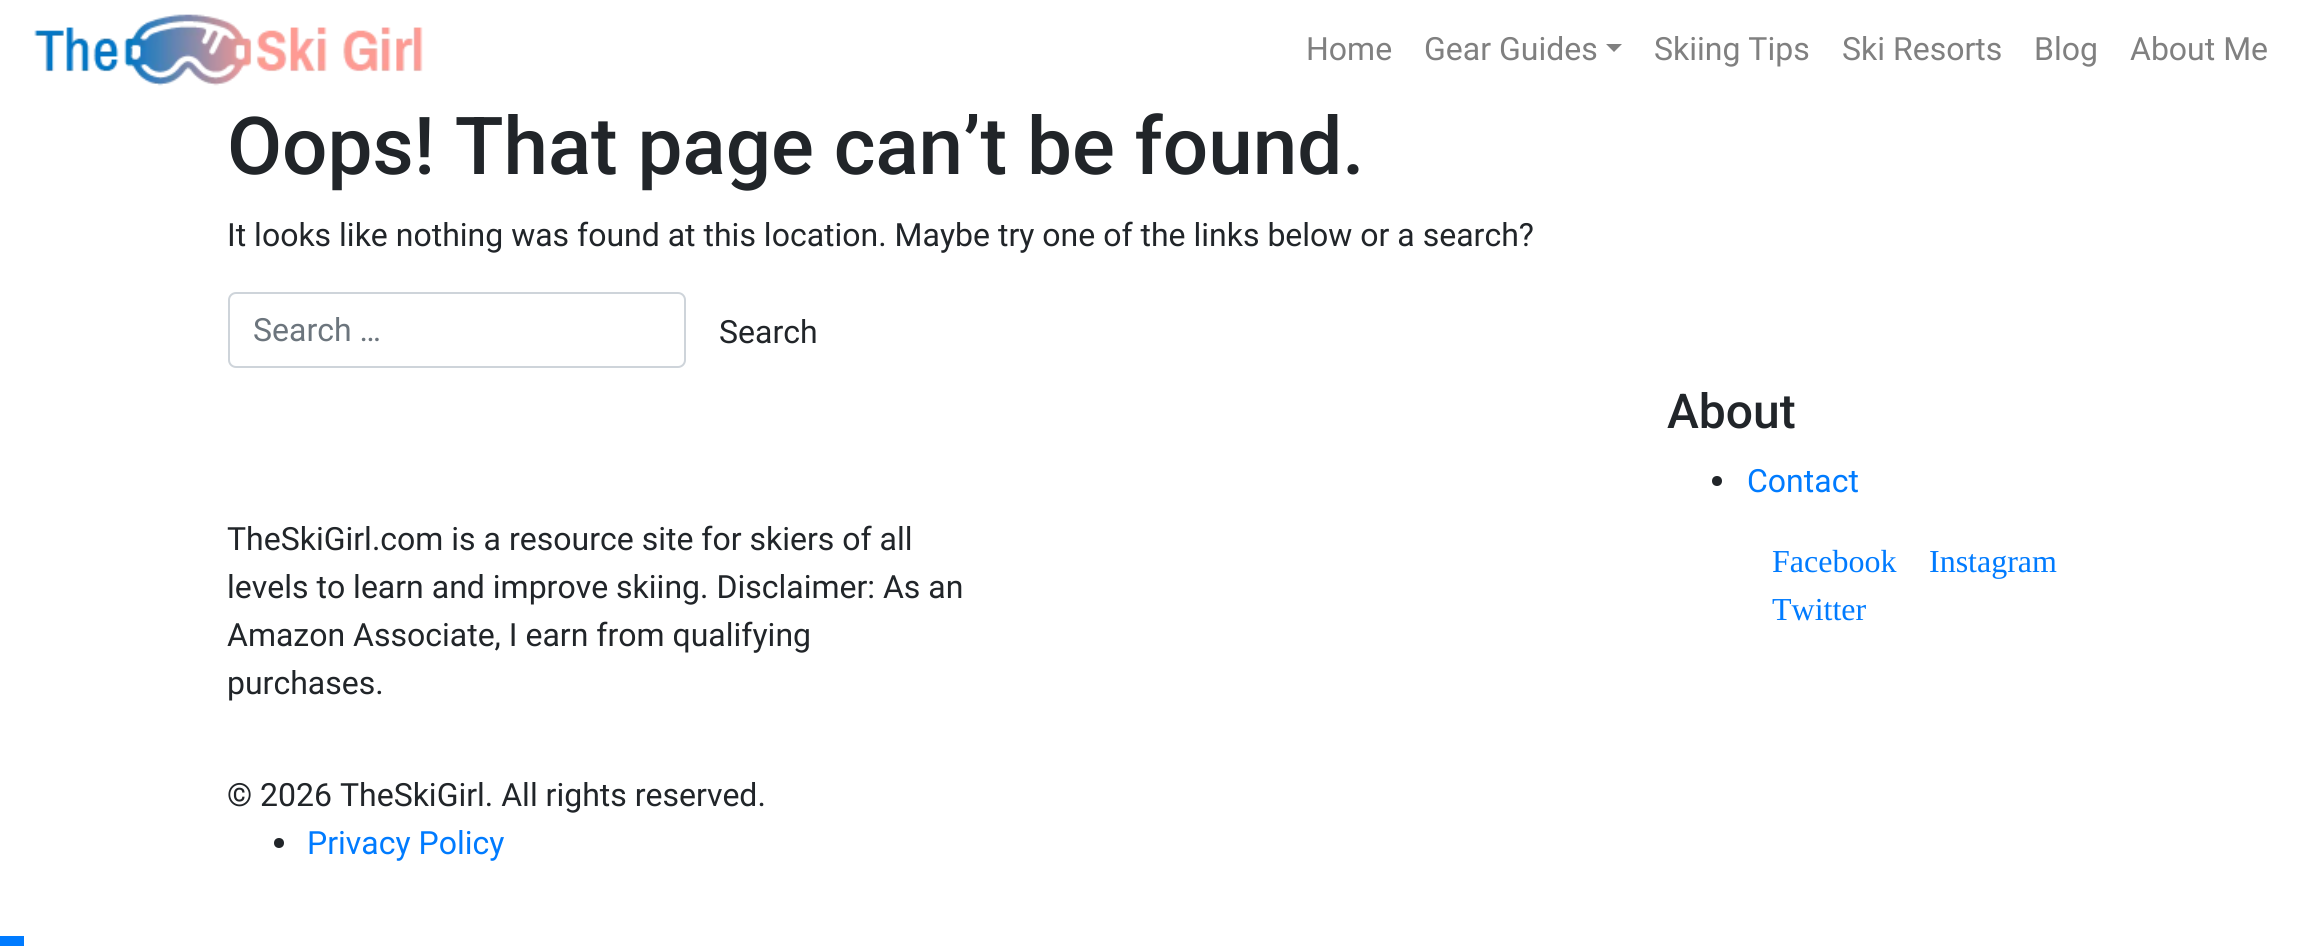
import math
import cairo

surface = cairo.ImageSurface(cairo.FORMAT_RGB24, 2313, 946)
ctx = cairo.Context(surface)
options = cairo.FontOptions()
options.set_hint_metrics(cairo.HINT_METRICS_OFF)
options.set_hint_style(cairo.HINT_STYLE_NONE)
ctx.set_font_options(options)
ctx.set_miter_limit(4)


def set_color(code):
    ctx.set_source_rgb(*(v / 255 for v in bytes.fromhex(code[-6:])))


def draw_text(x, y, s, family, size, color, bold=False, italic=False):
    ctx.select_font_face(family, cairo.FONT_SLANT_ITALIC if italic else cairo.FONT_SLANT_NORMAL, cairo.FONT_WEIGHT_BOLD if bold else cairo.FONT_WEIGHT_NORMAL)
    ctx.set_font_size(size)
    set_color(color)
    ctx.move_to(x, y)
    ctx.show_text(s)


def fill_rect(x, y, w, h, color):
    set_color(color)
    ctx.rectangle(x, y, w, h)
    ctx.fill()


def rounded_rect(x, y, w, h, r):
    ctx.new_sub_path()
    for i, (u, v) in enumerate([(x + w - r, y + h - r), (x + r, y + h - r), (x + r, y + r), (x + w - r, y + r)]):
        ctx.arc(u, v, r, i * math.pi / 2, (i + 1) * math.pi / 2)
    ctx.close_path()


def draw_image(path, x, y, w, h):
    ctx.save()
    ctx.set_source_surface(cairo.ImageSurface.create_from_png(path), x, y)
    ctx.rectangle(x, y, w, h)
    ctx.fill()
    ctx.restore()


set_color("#ffffff")
ctx.paint()
draw_image("assets/img1.png", 34, 14, 389, 72)
draw_text(1306, 60, "Home", "Roboto", 32, "#808080")
draw_text(1424, 60, "Gear Guides", "Roboto", 32, "#808080")
ctx.new_path()
ctx.move_to(1606, 44)
ctx.line_to(1622, 44)
ctx.line_to(1614, 52)
ctx.close_path()
ctx.fill()
draw_text(1654, 60, "Skiing Tips", "Roboto", 32, "#808080")
draw_text(1842, 60, "Ski Resorts", "Roboto", 32, "#808080")
draw_text(2034, 60, "Blog", "Roboto", 32, "#808080")
draw_text(2130, 60, "About Me", "Roboto", 32, "#808080")
draw_text(227, 174, "Oops! That page can’t be found.", "Roboto Medium", 80, "#212529")
draw_text(227, 246, "It looks like nothing was found at this location. Maybe try one of the links below or a search?", "Roboto", 32, "#212529")
rounded_rect(229, 293, 456, 74, 7)
set_color("#ced4da")
ctx.stroke()
draw_text(253, 341, "Search …", "Roboto", 32, "#6c757d")
draw_text(719, 343, "Search", "Roboto", 32, "#212529")
draw_text(227, 550, "TheSkiGirl.com is a resource site for skiers of all", "Roboto", 32, "#212529")
draw_text(227, 598, "levels to learn and improve skiing. Disclaimer: As an", "Roboto", 32, "#212529")
draw_text(227, 646, "Amazon Associate, I earn from qualifying", "Roboto", 32, "#212529")
draw_text(227, 694, "purchases.", "Roboto", 32, "#212529")
draw_text(1667, 428, "About", "Roboto Medium", 48, "#212529")
ctx.new_path()
ctx.arc(1717, 481, 5, 0, 2 * math.pi)
ctx.fill()
draw_text(1747, 492, "Contact", "Roboto", 32, "#007bff")
draw_text(1772, 572, "Facebook", "Liberation Serif", 32, "#007bff")
draw_text(1929, 572, "Instagram", "Liberation Serif", 32, "#007bff")
draw_text(1772, 620, "Twitter", "Liberation Serif", 32, "#007bff")
draw_text(227, 806, "© 2026 TheSkiGirl. All rights reserved.", "Roboto", 32, "#212529")
ctx.new_path()
ctx.arc(279, 843, 5, 0, 2 * math.pi)
ctx.fill()
draw_text(307, 854, "Privacy Policy", "Roboto", 32, "#007bff")
fill_rect(0, 936, 24, 10, "#007bff")
surface.write_to_png("output.png")
